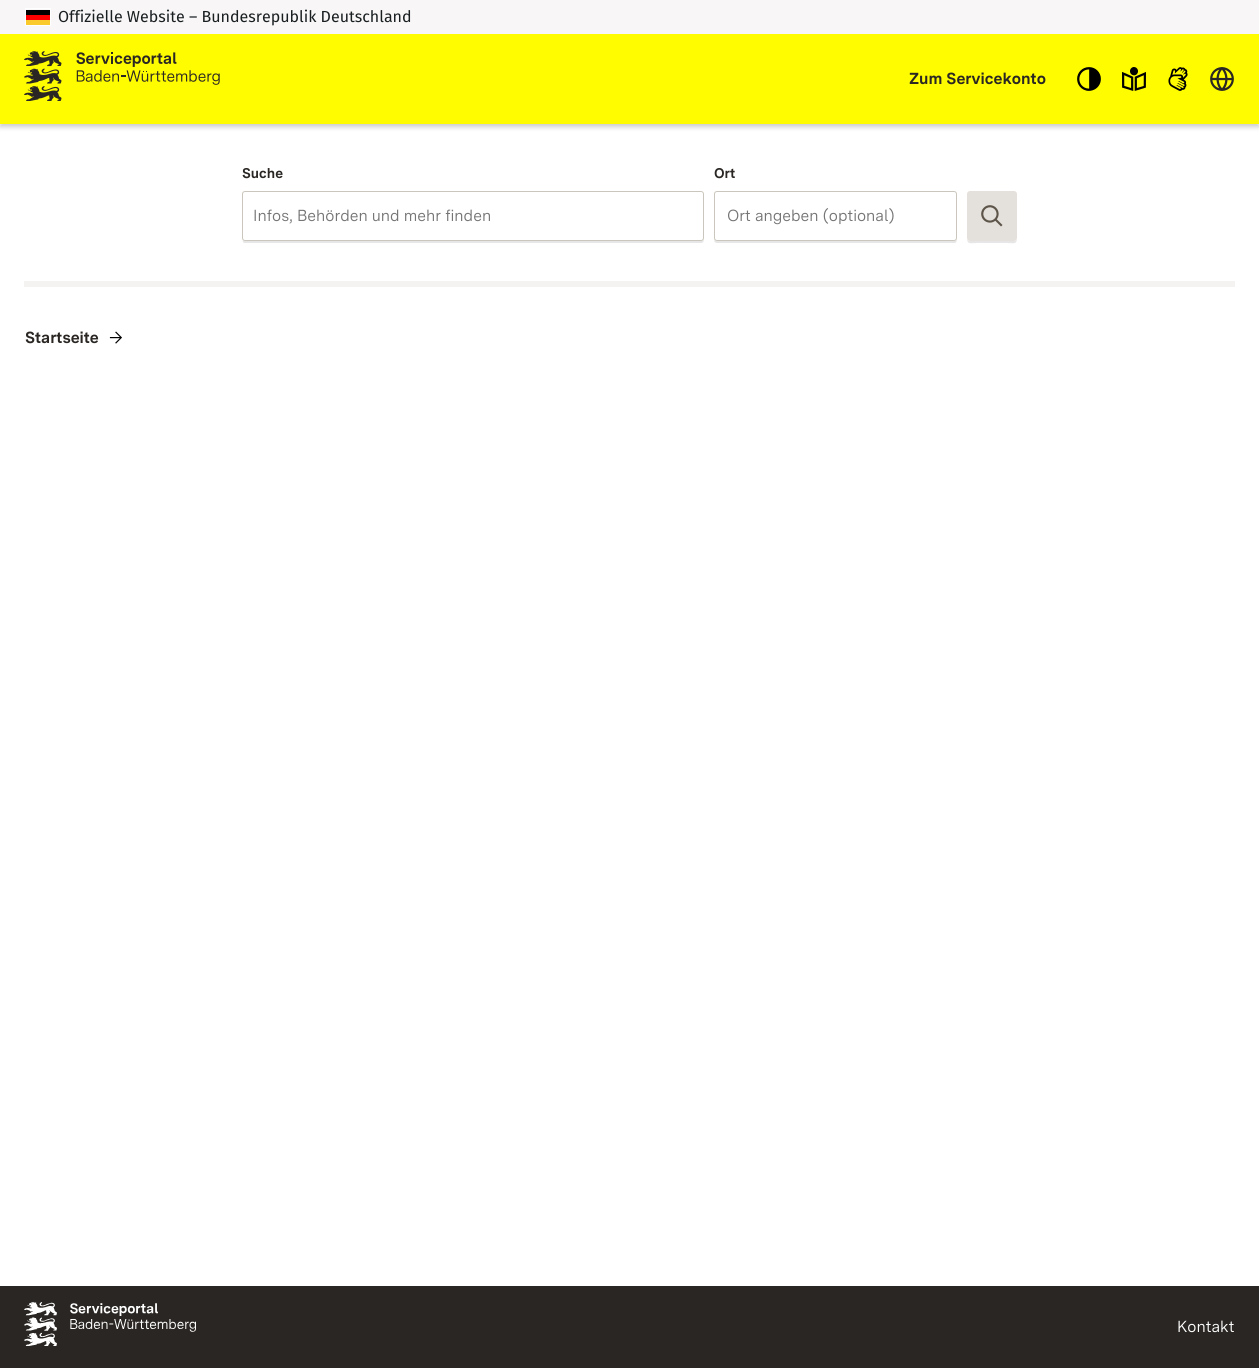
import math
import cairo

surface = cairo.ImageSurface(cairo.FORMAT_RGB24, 1259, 1368)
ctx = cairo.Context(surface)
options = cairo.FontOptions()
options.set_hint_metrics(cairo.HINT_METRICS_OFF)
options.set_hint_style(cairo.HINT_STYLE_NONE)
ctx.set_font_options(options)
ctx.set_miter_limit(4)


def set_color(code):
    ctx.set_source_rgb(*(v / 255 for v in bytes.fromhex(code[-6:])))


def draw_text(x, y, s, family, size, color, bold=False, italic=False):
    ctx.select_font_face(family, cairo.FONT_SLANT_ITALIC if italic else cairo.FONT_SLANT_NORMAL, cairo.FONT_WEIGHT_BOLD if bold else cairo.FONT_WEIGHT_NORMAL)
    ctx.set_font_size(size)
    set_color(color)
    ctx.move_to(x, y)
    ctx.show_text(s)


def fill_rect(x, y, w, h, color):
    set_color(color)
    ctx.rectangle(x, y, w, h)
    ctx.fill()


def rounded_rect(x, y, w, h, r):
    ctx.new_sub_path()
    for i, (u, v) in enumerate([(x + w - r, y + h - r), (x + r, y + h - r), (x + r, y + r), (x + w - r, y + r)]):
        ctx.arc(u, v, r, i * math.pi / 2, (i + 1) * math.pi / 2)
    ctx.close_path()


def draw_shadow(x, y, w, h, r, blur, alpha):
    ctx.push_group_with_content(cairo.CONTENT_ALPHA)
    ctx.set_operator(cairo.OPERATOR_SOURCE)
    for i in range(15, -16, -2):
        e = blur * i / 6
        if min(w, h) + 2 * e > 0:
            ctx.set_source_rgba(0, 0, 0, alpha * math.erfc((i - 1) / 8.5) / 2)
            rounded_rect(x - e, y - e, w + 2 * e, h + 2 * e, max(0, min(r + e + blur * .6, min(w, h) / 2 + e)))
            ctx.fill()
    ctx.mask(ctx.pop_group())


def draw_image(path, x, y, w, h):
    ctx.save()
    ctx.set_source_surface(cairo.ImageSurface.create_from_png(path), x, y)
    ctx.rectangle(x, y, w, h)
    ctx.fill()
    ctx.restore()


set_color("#ffffff")
ctx.paint()
set_color("#000000")
draw_shadow(0, 3, 1259, 124, 0, 2.5, 0.2)
fill_rect(0, 34, 1259, 90, "#fffc00")
fill_rect(0, 0, 1259, 34, "#f8f6f6")
ctx.rectangle(25.5, 8.5, 25, 17)
set_color("#ffffff")
ctx.set_line_width(1)
ctx.stroke()
fill_rect(26, 10, 24, 5, "#000000")
fill_rect(26, 15, 24, 5, "#ff0000")
fill_rect(26, 20, 24, 5, "#faca2c")
draw_text(58, 22, "Offizielle Website – Bundesrepublik Deutschland", "Fira Sans", 16, "#191e21")
draw_image("assets/img1.png", 24, 51, 196, 50)
draw_text(909, 84, "Zum Servicekonto", "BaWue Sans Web", 16, "#2a2623", bold=True)
draw_image("assets/img2.png", 1077, 67, 24, 24)
draw_image("assets/img3.png", 1122, 67, 24, 24)
draw_image("assets/img4.png", 1168, 67, 20, 24)
draw_image("assets/img5.png", 1210, 67, 24, 24)
fill_rect(24, 281, 1211, 6, "#f4f3f1")
draw_text(242, 178, "Suche", "BaWue Sans Web", 14, "#2a2623", bold=True)
set_color("#e6e6e6")
ctx.new_path()
ctx.move_to(242, 238)
ctx.line_to(243, 242)
ctx.line_to(244, 243)
ctx.line_to(701, 243)
ctx.curve_to(704, 243, 704, 240, 704, 238)
ctx.curve_to(704, 240, 703, 241, 701, 241)
ctx.line_to(245, 241)
ctx.curve_to(243, 241, 242, 240, 242, 238)
ctx.close_path()
ctx.fill()
set_color("#ffffff")
rounded_rect(242.5, 191.5, 461, 49, 2.5)
ctx.fill_preserve()
set_color("#cbc6bd")
ctx.stroke()
draw_text(253, 221, "Infos, Behörden und mehr finden", "BaWue Sans Web", 16, "#757575")
draw_text(714, 178, "Ort", "BaWue Sans Web", 14, "#2a2623", bold=True)
set_color("#e6e6e6")
ctx.new_path()
ctx.move_to(714, 238)
ctx.curve_to(714, 240, 714, 243, 717, 243)
ctx.line_to(955, 243)
ctx.curve_to(957, 242, 957, 240, 957, 238)
ctx.curve_to(957, 240, 956, 241, 954, 241)
ctx.line_to(717, 241)
ctx.curve_to(715, 241, 714, 240, 714, 238)
ctx.close_path()
ctx.fill()
set_color("#ffffff")
rounded_rect(714.5, 191.5, 242, 49, 2.5)
ctx.fill_preserve()
set_color("#cbc6bd")
ctx.stroke()
draw_text(727, 221, "Ort angeben (optional)", "BaWue Sans Web", 16, "#757575")
set_color("#e6e6e6")
ctx.new_path()
ctx.move_to(967, 238)
ctx.curve_to(967, 245, 971, 243, 977, 243)
ctx.line_to(1007, 243)
ctx.curve_to(1013, 243, 1017, 245, 1017, 238)
ctx.curve_to(1017, 240, 1016, 241, 1014, 241)
ctx.line_to(970, 241)
ctx.curve_to(968, 241, 967, 240, 967, 238)
ctx.close_path()
ctx.fill()
set_color("#e4e1dc")
rounded_rect(968, 192, 48, 48, 2)
ctx.fill_preserve()
ctx.set_line_width(2)
ctx.stroke()
draw_image("assets/img6.png", 981, 205, 22, 22)
draw_text(25, 343, "Startseite", "BaWue Sans Web", 16, "#2a2623", bold=True)
draw_image("assets/img7.png", 109, 331, 13, 13)
fill_rect(0, 1286, 1259, 82, "#2a2623")
draw_image("assets/img8.png", 24, 1302, 172, 44)
draw_text(1177, 1332, "Kontakt", "BaWue Sans Web", 16, "#ffffff")
surface.write_to_png("output.png")
